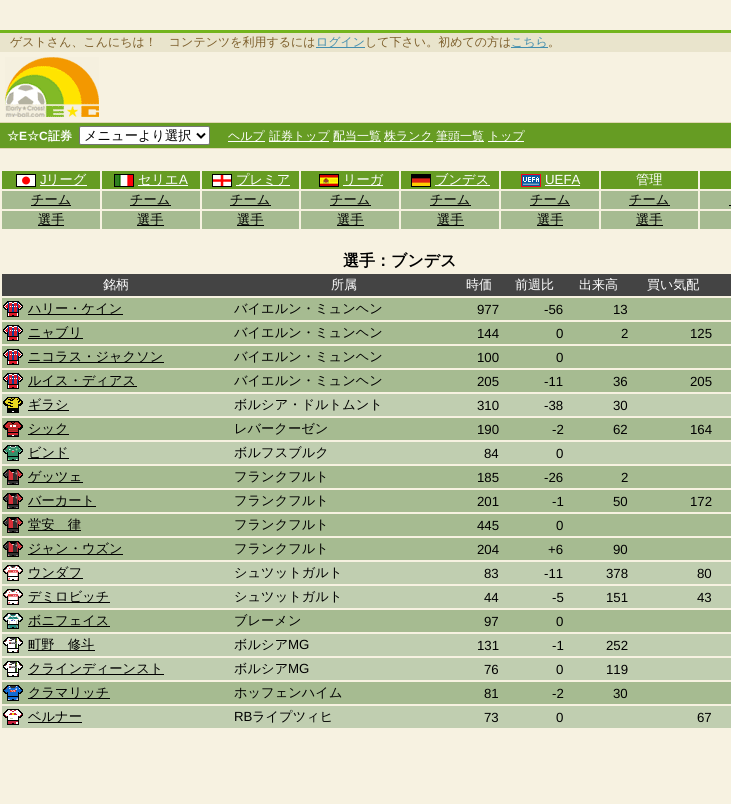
import math
import cairo

surface = cairo.ImageSurface(cairo.FORMAT_RGB24, 731, 804)
ctx = cairo.Context(surface)
options = cairo.FontOptions()
options.set_hint_metrics(cairo.HINT_METRICS_OFF)
options.set_hint_style(cairo.HINT_STYLE_NONE)
ctx.set_font_options(options)
ctx.set_miter_limit(4)


def set_color(code):
    ctx.set_source_rgb(*(v / 255 for v in bytes.fromhex(code[-6:])))


def draw_text(x, y, s, family, size, color, bold=False, italic=False):
    ctx.select_font_face(family, cairo.FONT_SLANT_ITALIC if italic else cairo.FONT_SLANT_NORMAL, cairo.FONT_WEIGHT_BOLD if bold else cairo.FONT_WEIGHT_NORMAL)
    ctx.set_font_size(size)
    set_color(color)
    ctx.move_to(x, y)
    ctx.show_text(s)


def fill_rect(x, y, w, h, color):
    set_color(color)
    ctx.rectangle(x, y, w, h)
    ctx.fill()


def rounded_rect(x, y, w, h, r):
    ctx.new_sub_path()
    for i, (u, v) in enumerate([(x + w - r, y + h - r), (x + r, y + h - r), (x + r, y + r), (x + w - r, y + r)]):
        ctx.arc(u, v, r, i * math.pi / 2, (i + 1) * math.pi / 2)
    ctx.close_path()


def draw_image(path, x, y, w, h):
    ctx.save()
    ctx.set_source_surface(cairo.ImageSurface.create_from_png(path), x, y)
    ctx.rectangle(x, y, w, h)
    ctx.fill()
    ctx.restore()


set_color("#f7f2e1")
ctx.paint()
fill_rect(0, 33, 731, 19, "#e9e4cc")
fill_rect(0, 30, 731, 3, "#73b41d")
draw_text(10, 46, "ゲストさん、こんにちは！　コンテンツを利用するには", "WenQuanYi Zen Hei Medium", 12, "#7c5e2a")
fill_rect(316, 47, 49, 1, "#438eae")
draw_text(316, 46, "ログイン", "WenQuanYi Zen Hei Medium", 12, "#438eae")
draw_text(365, 46, "して下さい。初めての方は", "WenQuanYi Zen Hei Medium", 12, "#7c5e2a")
fill_rect(511, 47, 37, 1, "#438eae")
draw_text(511, 46, "こちら", "WenQuanYi Zen Hei Medium", 12, "#438eae")
draw_text(548, 46, "。", "WenQuanYi Zen Hei Medium", 12, "#7c5e2a")
draw_image("assets/img1.png", 5, 57, 94, 60)
fill_rect(0, 123, 731, 25, "#669c23")
fill_rect(0, 122, 731, 1, "#dfd7b3")
fill_rect(0, 148, 731, 1, "#dfd7b3")
draw_text(7, 140, "☆", "WenQuanYi Zen Hei", 12, "#ffffff", bold=True)
draw_text(19, 140, "E", "Liberation Sans", 12, "#ffffff", bold=True)
draw_text(27, 140, "☆", "WenQuanYi Zen Hei", 12, "#ffffff", bold=True)
draw_text(39, 140, "C", "Liberation Sans", 12, "#ffffff", bold=True)
draw_text(48, 140, "証券", "WenQuanYi Zen Hei", 12, "#ffffff", bold=True)
rounded_rect(79.5, 126.5, 130, 18, 1.5)
ctx.fill_preserve()
set_color("#767676")
ctx.set_line_width(1)
ctx.stroke()
ctx.new_path()
ctx.move_to(197, 133.5)
ctx.line_to(201, 137.5)
ctx.line_to(205, 133.5)
set_color("#000000")
ctx.set_line_width(2)
ctx.stroke()
draw_text(84, 140, "メニューより選択", "WenQuanYi Zen Hei Medium", 13.25, "#000000")
fill_rect(228, 141, 37, 1, "#ffffff")
draw_text(228, 140, "ヘルプ", "WenQuanYi Zen Hei Medium", 12, "#ffffff")
fill_rect(269, 141, 60, 1, "#ffffff")
draw_text(269, 140, "証券トップ", "WenQuanYi Zen Hei Medium", 12, "#ffffff")
fill_rect(333, 141, 48, 1, "#ffffff")
draw_text(333, 140, "配当一覧", "WenQuanYi Zen Hei Medium", 12, "#ffffff")
fill_rect(384, 141, 49, 1, "#ffffff")
draw_text(384, 140, "株ランク", "WenQuanYi Zen Hei Medium", 12, "#ffffff")
fill_rect(436, 141, 48, 1, "#ffffff")
draw_text(436, 140, "筆頭一覧", "WenQuanYi Zen Hei Medium", 12, "#ffffff")
fill_rect(488, 141, 36, 1, "#ffffff")
draw_text(488, 140, "トップ", "WenQuanYi Zen Hei Medium", 12, "#ffffff")
fill_rect(2, 171, 98, 18, "#669c23")
draw_image("assets/img2.png", 16, 174, 20, 13)
draw_text(40, 184, "J", "Liberation Sans", 13.25, "#ffffff")
fill_rect(40, 185, 47, 1, "#ffffff")
draw_text(46, 184, "リーグ", "WenQuanYi Zen Hei Medium", 13.25, "#ffffff")
fill_rect(102, 171, 98, 18, "#669c23")
draw_image("assets/img3.png", 114, 174, 20, 13)
fill_rect(138, 185, 50, 1, "#ffffff")
draw_text(138, 184, "セリエ", "WenQuanYi Zen Hei Medium", 13.25, "#ffffff")
draw_text(179, 184, "A", "Liberation Sans", 13.25, "#ffffff")
fill_rect(202, 171, 97, 18, "#669c23")
draw_image("assets/img4.png", 212, 174, 20, 13)
fill_rect(236, 185, 54, 1, "#ffffff")
draw_text(236, 184, "プレミア", "WenQuanYi Zen Hei Medium", 13.25, "#ffffff")
fill_rect(301, 171, 98, 18, "#669c23")
draw_image("assets/img5.png", 319, 174, 20, 13)
fill_rect(343, 185, 40, 1, "#ffffff")
draw_text(343, 184, "リーガ", "WenQuanYi Zen Hei Medium", 13.25, "#ffffff")
fill_rect(401, 171, 98, 18, "#669c23")
draw_image("assets/img6.png", 411, 174, 20, 13)
fill_rect(435, 185, 55, 1, "#ffffff")
draw_text(435, 184, "ブンデス", "WenQuanYi Zen Hei Medium", 13.25, "#ffffff")
fill_rect(501, 171, 98, 18, "#669c23")
draw_image("assets/img7.png", 521, 174, 20, 13)
draw_text(545, 184, "UEFA", "Liberation Sans", 13.25, "#ffffff")
fill_rect(545, 185, 35, 1, "#ffffff")
fill_rect(601, 171, 97, 18, "#669c23")
draw_text(636, 184, "管理", "WenQuanYi Zen Hei Medium", 13.25, "#ffffff")
fill_rect(700, 171, 31, 18, "#669c23")
fill_rect(2, 191, 98, 18, "#a6bb91")
fill_rect(31, 205, 40, 1, "#000000")
draw_text(31, 204, "チーム", "WenQuanYi Zen Hei Medium", 13.25, "#000000")
fill_rect(102, 191, 98, 18, "#a6bb91")
fill_rect(130, 205, 41, 1, "#000000")
draw_text(130, 204, "チーム", "WenQuanYi Zen Hei Medium", 13.25, "#000000")
fill_rect(202, 191, 97, 18, "#a6bb91")
fill_rect(230, 205, 41, 1, "#000000")
draw_text(230, 204, "チーム", "WenQuanYi Zen Hei Medium", 13.25, "#000000")
fill_rect(301, 191, 98, 18, "#a6bb91")
fill_rect(330, 205, 41, 1, "#000000")
draw_text(330, 204, "チーム", "WenQuanYi Zen Hei Medium", 13.25, "#000000")
fill_rect(401, 191, 98, 18, "#a6bb91")
fill_rect(430, 205, 41, 1, "#000000")
draw_text(430, 204, "チーム", "WenQuanYi Zen Hei Medium", 13.25, "#000000")
fill_rect(501, 191, 98, 18, "#a6bb91")
fill_rect(530, 205, 40, 1, "#000000")
draw_text(530, 204, "チーム", "WenQuanYi Zen Hei Medium", 13.25, "#000000")
fill_rect(601, 191, 97, 18, "#a6bb91")
fill_rect(629, 205, 41, 1, "#000000")
draw_text(629, 204, "チーム", "WenQuanYi Zen Hei Medium", 13.25, "#000000")
fill_rect(700, 191, 31, 18, "#a6bb91")
fill_rect(729, 205, 2, 1, "#000000")
fill_rect(2, 211, 98, 18, "#a6bb91")
fill_rect(38, 225, 26, 1, "#000000")
draw_text(38, 224, "選手", "WenQuanYi Zen Hei Medium", 13.25, "#000000")
fill_rect(102, 211, 98, 18, "#a6bb91")
fill_rect(137, 225, 27, 1, "#000000")
draw_text(137, 224, "選手", "WenQuanYi Zen Hei Medium", 13.25, "#000000")
fill_rect(202, 211, 97, 18, "#a6bb91")
fill_rect(237, 225, 27, 1, "#000000")
draw_text(237, 224, "選手", "WenQuanYi Zen Hei Medium", 13.25, "#000000")
fill_rect(301, 211, 98, 18, "#a6bb91")
fill_rect(337, 225, 27, 1, "#000000")
draw_text(337, 224, "選手", "WenQuanYi Zen Hei Medium", 13.25, "#000000")
fill_rect(401, 211, 98, 18, "#a6bb91")
fill_rect(437, 225, 27, 1, "#000000")
draw_text(437, 224, "選手", "WenQuanYi Zen Hei Medium", 13.25, "#000000")
fill_rect(501, 211, 98, 18, "#a6bb91")
fill_rect(537, 225, 26, 1, "#000000")
draw_text(537, 224, "選手", "WenQuanYi Zen Hei Medium", 13.25, "#000000")
fill_rect(601, 211, 97, 18, "#a6bb91")
fill_rect(636, 225, 27, 1, "#000000")
draw_text(636, 224, "選手", "WenQuanYi Zen Hei Medium", 13.25, "#000000")
fill_rect(700, 211, 31, 18, "#a6bb91")
draw_text(343, 266, "選手：ブンデス", "WenQuanYi Zen Hei", 16, "#000000", bold=True)
fill_rect(2, 274, 729, 22, "#444444")
draw_text(103, 289, "銘柄", "WenQuanYi Zen Hei Medium", 13, "#ffffff")
draw_text(331, 289, "所属", "WenQuanYi Zen Hei Medium", 13, "#ffffff")
draw_text(466, 289, "時価", "WenQuanYi Zen Hei Medium", 13, "#ffffff")
draw_text(515, 289, "前週比", "WenQuanYi Zen Hei Medium", 13, "#ffffff")
draw_text(579, 289, "出来高", "WenQuanYi Zen Hei Medium", 13, "#ffffff")
draw_text(647, 289, "買い気配", "WenQuanYi Zen Hei Medium", 13, "#ffffff")
fill_rect(2, 298, 729, 22, "#a6bb91")
draw_image("assets/img8.png", 3, 301, 20, 16)
fill_rect(28, 314, 95, 1, "#000000")
draw_text(28, 313, "ハリー・ケイン", "WenQuanYi Zen Hei Medium", 13.25, "#000000")
draw_text(234, 313, "バイエルン・ミュンヘン", "WenQuanYi Zen Hei Medium", 13.25, "#000000")
draw_text(477, 314, "977", "Liberation Sans", 13.25, "#000000")
draw_text(544, 314, "-56", "Liberation Sans", 13.25, "#000000")
draw_text(613, 314, "13", "Liberation Sans", 13.25, "#000000")
fill_rect(2, 322, 729, 22, "#a6bb91")
draw_image("assets/img8.png", 3, 325, 20, 16)
fill_rect(28, 338, 55, 1, "#000000")
draw_text(28, 337, "ニャブリ", "WenQuanYi Zen Hei Medium", 13.25, "#000000")
draw_text(234, 337, "バイエルン・ミュンヘン", "WenQuanYi Zen Hei Medium", 13.25, "#000000")
draw_text(477, 338, "144", "Liberation Sans", 13.25, "#000000")
draw_text(556, 338, "0", "Liberation Sans", 13.25, "#000000")
draw_text(621, 338, "2", "Liberation Sans", 13.25, "#000000")
draw_text(690, 338, "125", "Liberation Sans", 13.25, "#000000")
fill_rect(2, 346, 729, 22, "#a6bb91")
draw_image("assets/img8.png", 3, 349, 20, 16)
fill_rect(28, 362, 136, 1, "#000000")
draw_text(28, 361, "ニコラス・ジャクソン", "WenQuanYi Zen Hei Medium", 13.25, "#000000")
draw_text(234, 361, "バイエルン・ミュンヘン", "WenQuanYi Zen Hei Medium", 13.25, "#000000")
draw_text(477, 362, "100", "Liberation Sans", 13.25, "#000000")
draw_text(556, 362, "0", "Liberation Sans", 13.25, "#000000")
fill_rect(2, 370, 729, 22, "#a6bb91")
draw_image("assets/img8.png", 3, 373, 20, 16)
fill_rect(28, 386, 109, 1, "#000000")
draw_text(28, 385, "ルイス・ディアス", "WenQuanYi Zen Hei Medium", 13.25, "#000000")
draw_text(234, 385, "バイエルン・ミュンヘン", "WenQuanYi Zen Hei Medium", 13.25, "#000000")
draw_text(477, 386, "205", "Liberation Sans", 13.25, "#000000")
draw_text(544, 386, "-11", "Liberation Sans", 13.25, "#000000")
draw_text(613, 386, "36", "Liberation Sans", 13.25, "#000000")
draw_text(690, 386, "205", "Liberation Sans", 13.25, "#000000")
fill_rect(2, 394, 729, 22, "#c0ceb0")
draw_image("assets/img9.png", 3, 397, 20, 16)
fill_rect(28, 410, 41, 1, "#000000")
draw_text(28, 409, "ギラシ", "WenQuanYi Zen Hei Medium", 13.25, "#000000")
draw_text(234, 409, "ボルシア・ドルトムント", "WenQuanYi Zen Hei Medium", 13.25, "#000000")
draw_text(477, 410, "310", "Liberation Sans", 13.25, "#000000")
draw_text(544, 410, "-38", "Liberation Sans", 13.25, "#000000")
draw_text(613, 410, "30", "Liberation Sans", 13.25, "#000000")
fill_rect(2, 418, 729, 22, "#a6bb91")
draw_image("assets/img10.png", 3, 421, 20, 16)
fill_rect(28, 434, 41, 1, "#000000")
draw_text(28, 433, "シック", "WenQuanYi Zen Hei Medium", 13.25, "#000000")
draw_text(234, 433, "レバークーゼン", "WenQuanYi Zen Hei Medium", 13.25, "#000000")
draw_text(477, 434, "190", "Liberation Sans", 13.25, "#000000")
draw_text(552, 434, "-2", "Liberation Sans", 13.25, "#000000")
draw_text(613, 434, "62", "Liberation Sans", 13.25, "#000000")
draw_text(690, 434, "164", "Liberation Sans", 13.25, "#000000")
fill_rect(2, 442, 729, 22, "#c0ceb0")
draw_image("assets/img11.png", 3, 445, 20, 16)
fill_rect(28, 458, 41, 1, "#000000")
draw_text(28, 457, "ビンド", "WenQuanYi Zen Hei Medium", 13.25, "#000000")
draw_text(234, 457, "ボルフスブルク", "WenQuanYi Zen Hei Medium", 13.25, "#000000")
draw_text(484, 458, "84", "Liberation Sans", 13.25, "#000000")
draw_text(556, 458, "0", "Liberation Sans", 13.25, "#000000")
fill_rect(2, 466, 729, 22, "#a6bb91")
draw_image("assets/img12.png", 3, 469, 20, 16)
fill_rect(28, 482, 55, 1, "#000000")
draw_text(28, 481, "ゲッツェ", "WenQuanYi Zen Hei Medium", 13.25, "#000000")
draw_text(234, 481, "フランクフルト", "WenQuanYi Zen Hei Medium", 13.25, "#000000")
draw_text(477, 482, "185", "Liberation Sans", 13.25, "#000000")
draw_text(544, 482, "-26", "Liberation Sans", 13.25, "#000000")
draw_text(621, 482, "2", "Liberation Sans", 13.25, "#000000")
fill_rect(2, 490, 729, 22, "#a6bb91")
draw_image("assets/img12.png", 3, 493, 20, 16)
fill_rect(28, 506, 68, 1, "#000000")
draw_text(28, 505, "バーカート", "WenQuanYi Zen Hei Medium", 13.25, "#000000")
draw_text(234, 505, "フランクフルト", "WenQuanYi Zen Hei Medium", 13.25, "#000000")
draw_text(477, 506, "201", "Liberation Sans", 13.25, "#000000")
draw_text(552, 506, "-1", "Liberation Sans", 13.25, "#000000")
draw_text(613, 506, "50", "Liberation Sans", 13.25, "#000000")
draw_text(690, 506, "172", "Liberation Sans", 13.25, "#000000")
fill_rect(2, 514, 729, 22, "#a6bb91")
draw_image("assets/img12.png", 3, 517, 20, 16)
fill_rect(28, 530, 53, 1, "#000000")
draw_text(28, 529, "堂安　律", "WenQuanYi Zen Hei Medium", 13.25, "#000000")
draw_text(234, 529, "フランクフルト", "WenQuanYi Zen Hei Medium", 13.25, "#000000")
draw_text(477, 530, "445", "Liberation Sans", 13.25, "#000000")
draw_text(556, 530, "0", "Liberation Sans", 13.25, "#000000")
fill_rect(2, 538, 729, 22, "#a6bb91")
draw_image("assets/img12.png", 3, 541, 20, 16)
fill_rect(28, 554, 95, 1, "#000000")
draw_text(28, 553, "ジャン・ウズン", "WenQuanYi Zen Hei Medium", 13.25, "#000000")
draw_text(234, 553, "フランクフルト", "WenQuanYi Zen Hei Medium", 13.25, "#000000")
draw_text(477, 554, "204", "Liberation Sans", 13.25, "#000000")
draw_text(548, 554, "+6", "Liberation Sans", 13.25, "#000000")
draw_text(613, 554, "90", "Liberation Sans", 13.25, "#000000")
fill_rect(2, 562, 729, 22, "#c0ceb0")
draw_image("assets/img13.png", 3, 565, 20, 16)
fill_rect(28, 578, 55, 1, "#000000")
draw_text(28, 577, "ウンダフ", "WenQuanYi Zen Hei Medium", 13.25, "#000000")
draw_text(234, 577, "シュツットガルト", "WenQuanYi Zen Hei Medium", 13.25, "#000000")
draw_text(484, 578, "83", "Liberation Sans", 13.25, "#000000")
draw_text(544, 578, "-11", "Liberation Sans", 13.25, "#000000")
draw_text(606, 578, "378", "Liberation Sans", 13.25, "#000000")
draw_text(697, 578, "80", "Liberation Sans", 13.25, "#000000")
fill_rect(2, 586, 729, 22, "#c0ceb0")
draw_image("assets/img13.png", 3, 589, 20, 16)
fill_rect(28, 602, 82, 1, "#000000")
draw_text(28, 601, "デミロビッチ", "WenQuanYi Zen Hei Medium", 13.25, "#000000")
draw_text(234, 601, "シュツットガルト", "WenQuanYi Zen Hei Medium", 13.25, "#000000")
draw_text(484, 602, "44", "Liberation Sans", 13.25, "#000000")
draw_text(552, 602, "-5", "Liberation Sans", 13.25, "#000000")
draw_text(606, 602, "151", "Liberation Sans", 13.25, "#000000")
draw_text(697, 602, "43", "Liberation Sans", 13.25, "#000000")
fill_rect(2, 610, 729, 22, "#a6bb91")
draw_image("assets/img14.png", 3, 613, 20, 16)
fill_rect(28, 626, 82, 1, "#000000")
draw_text(28, 625, "ボニフェイス", "WenQuanYi Zen Hei Medium", 13.25, "#000000")
draw_text(234, 625, "ブレーメン", "WenQuanYi Zen Hei Medium", 13.25, "#000000")
draw_text(484, 626, "97", "Liberation Sans", 13.25, "#000000")
draw_text(556, 626, "0", "Liberation Sans", 13.25, "#000000")
fill_rect(2, 634, 729, 22, "#c0ceb0")
draw_image("assets/img15.png", 3, 637, 20, 16)
fill_rect(28, 650, 67, 1, "#000000")
draw_text(28, 649, "町野　修斗", "WenQuanYi Zen Hei Medium", 13.25, "#000000")
draw_text(234, 649, "ボルシア", "WenQuanYi Zen Hei Medium", 13.25, "#000000")
draw_text(288, 649, "MG", "Liberation Sans", 13.25, "#000000")
draw_text(477, 650, "131", "Liberation Sans", 13.25, "#000000")
draw_text(552, 650, "-1", "Liberation Sans", 13.25, "#000000")
draw_text(606, 650, "252", "Liberation Sans", 13.25, "#000000")
fill_rect(2, 658, 729, 22, "#c0ceb0")
draw_image("assets/img15.png", 3, 661, 20, 16)
fill_rect(28, 674, 136, 1, "#000000")
draw_text(28, 673, "クラインディーンスト", "WenQuanYi Zen Hei Medium", 13.25, "#000000")
draw_text(234, 673, "ボルシア", "WenQuanYi Zen Hei Medium", 13.25, "#000000")
draw_text(288, 673, "MG", "Liberation Sans", 13.25, "#000000")
draw_text(484, 674, "76", "Liberation Sans", 13.25, "#000000")
draw_text(556, 674, "0", "Liberation Sans", 13.25, "#000000")
draw_text(606, 674, "119", "Liberation Sans", 13.25, "#000000")
fill_rect(2, 682, 729, 22, "#a6bb91")
draw_image("assets/img16.png", 3, 685, 20, 16)
fill_rect(28, 698, 82, 1, "#000000")
draw_text(28, 697, "クラマリッチ", "WenQuanYi Zen Hei Medium", 13.25, "#000000")
draw_text(234, 697, "ホッフェンハイム", "WenQuanYi Zen Hei Medium", 13.25, "#000000")
draw_text(484, 698, "81", "Liberation Sans", 13.25, "#000000")
draw_text(552, 698, "-2", "Liberation Sans", 13.25, "#000000")
draw_text(613, 698, "30", "Liberation Sans", 13.25, "#000000")
fill_rect(2, 706, 729, 22, "#c0ceb0")
draw_image("assets/img17.png", 3, 709, 20, 16)
fill_rect(28, 722, 54, 1, "#000000")
draw_text(28, 721, "ベルナー", "WenQuanYi Zen Hei Medium", 13.25, "#000000")
draw_text(234, 721, "RB", "Liberation Sans", 13.25, "#000000")
draw_text(252, 721, "ライプツィヒ", "WenQuanYi Zen Hei Medium", 13.25, "#000000")
draw_text(484, 722, "73", "Liberation Sans", 13.25, "#000000")
draw_text(556, 722, "0", "Liberation Sans", 13.25, "#000000")
draw_text(697, 722, "67", "Liberation Sans", 13.25, "#000000")
surface.write_to_png("output.png")
